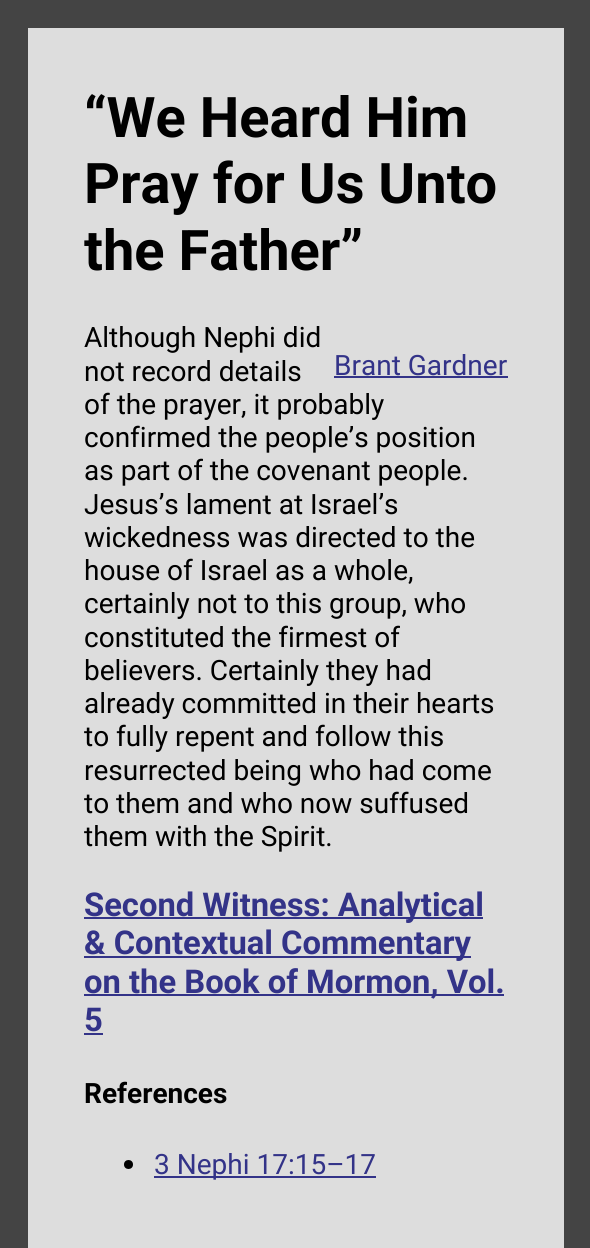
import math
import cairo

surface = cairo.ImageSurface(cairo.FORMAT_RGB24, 590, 1248)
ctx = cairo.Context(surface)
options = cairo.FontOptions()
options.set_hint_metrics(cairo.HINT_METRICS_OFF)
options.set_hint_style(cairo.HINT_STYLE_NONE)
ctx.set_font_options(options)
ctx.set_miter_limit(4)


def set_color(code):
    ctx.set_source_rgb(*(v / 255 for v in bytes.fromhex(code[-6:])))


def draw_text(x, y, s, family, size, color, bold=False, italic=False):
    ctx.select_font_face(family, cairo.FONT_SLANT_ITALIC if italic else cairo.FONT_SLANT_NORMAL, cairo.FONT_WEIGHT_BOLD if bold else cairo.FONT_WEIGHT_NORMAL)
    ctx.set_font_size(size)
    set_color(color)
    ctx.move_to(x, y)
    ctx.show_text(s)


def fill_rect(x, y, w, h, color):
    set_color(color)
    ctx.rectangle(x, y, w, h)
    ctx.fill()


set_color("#444444")
ctx.paint()
fill_rect(28, 28, 536, 1220, "#dddddd")
draw_text(84, 137, "“We Heard Him", "Roboto", 56, "#000000", bold=True)
draw_text(84, 203, "Pray for Us Unto", "Roboto", 56, "#000000", bold=True)
draw_text(84, 270, "the Father”", "Roboto", 56, "#000000", bold=True)
draw_text(84, 347, "Although Nephi did", "Roboto", 28, "#000000")
draw_text(84, 381, "not record details", "Roboto", 28, "#000000")
draw_text(84, 414, "of the prayer, it probably", "Roboto", 28, "#000000")
draw_text(84, 447, "confirmed the people’s position", "Roboto", 28, "#000000")
draw_text(84, 480, "as part of the covenant people.", "Roboto", 28, "#000000")
draw_text(84, 514, "Jesus’s lament at Israel’s", "Roboto", 28, "#000000")
draw_text(84, 547, "wickedness was directed to the", "Roboto", 28, "#000000")
draw_text(84, 580, "house of Israel as a whole,", "Roboto", 28, "#000000")
draw_text(84, 613, "certainly not to this group, who", "Roboto", 28, "#000000")
draw_text(84, 647, "constituted the firmest of", "Roboto", 28, "#000000")
draw_text(84, 680, "believers. Certainly they had", "Roboto", 28, "#000000")
draw_text(84, 713, "already committed in their hearts", "Roboto", 28, "#000000")
draw_text(84, 746, "to fully repent and follow this", "Roboto", 28, "#000000")
draw_text(84, 780, "resurrected being who had come", "Roboto", 28, "#000000")
draw_text(84, 813, "to them and who now suffused", "Roboto", 28, "#000000")
draw_text(84, 846, "them with the Spirit.", "Roboto", 28, "#000000")
draw_text(334, 375, "Brant Gardner", "Roboto", 28, "#333388")
fill_rect(334, 376, 174, 2, "#333388")
fill_rect(84, 917, 399, 2, "#333388")
draw_text(84, 916, "Second Witness: Analytical", "Roboto", 32.75, "#333388", bold=True)
fill_rect(84, 956, 387, 2, "#333388")
draw_text(84, 954, "& Contextual Commentary", "Roboto", 32.75, "#333388", bold=True)
fill_rect(84, 994, 420, 2, "#333388")
draw_text(84, 993, "on the Book of Mormon, Vol.", "Roboto", 32.75, "#333388", bold=True)
draw_text(84, 1031, "5", "Roboto", 32.75, "#333388", bold=True)
fill_rect(84, 1033, 19, 2, "#333388")
draw_text(84, 1103, "References", "Roboto", 28, "#000000", bold=True)
ctx.new_path()
ctx.arc(128.5, 1164.5, 4.5, 0, 2 * math.pi)
ctx.fill()
fill_rect(154, 1176, 222, 2, "#333388")
draw_text(154, 1174, "3 Nephi 17:15–17", "Roboto", 28, "#333388")
surface.write_to_png("output.png")
